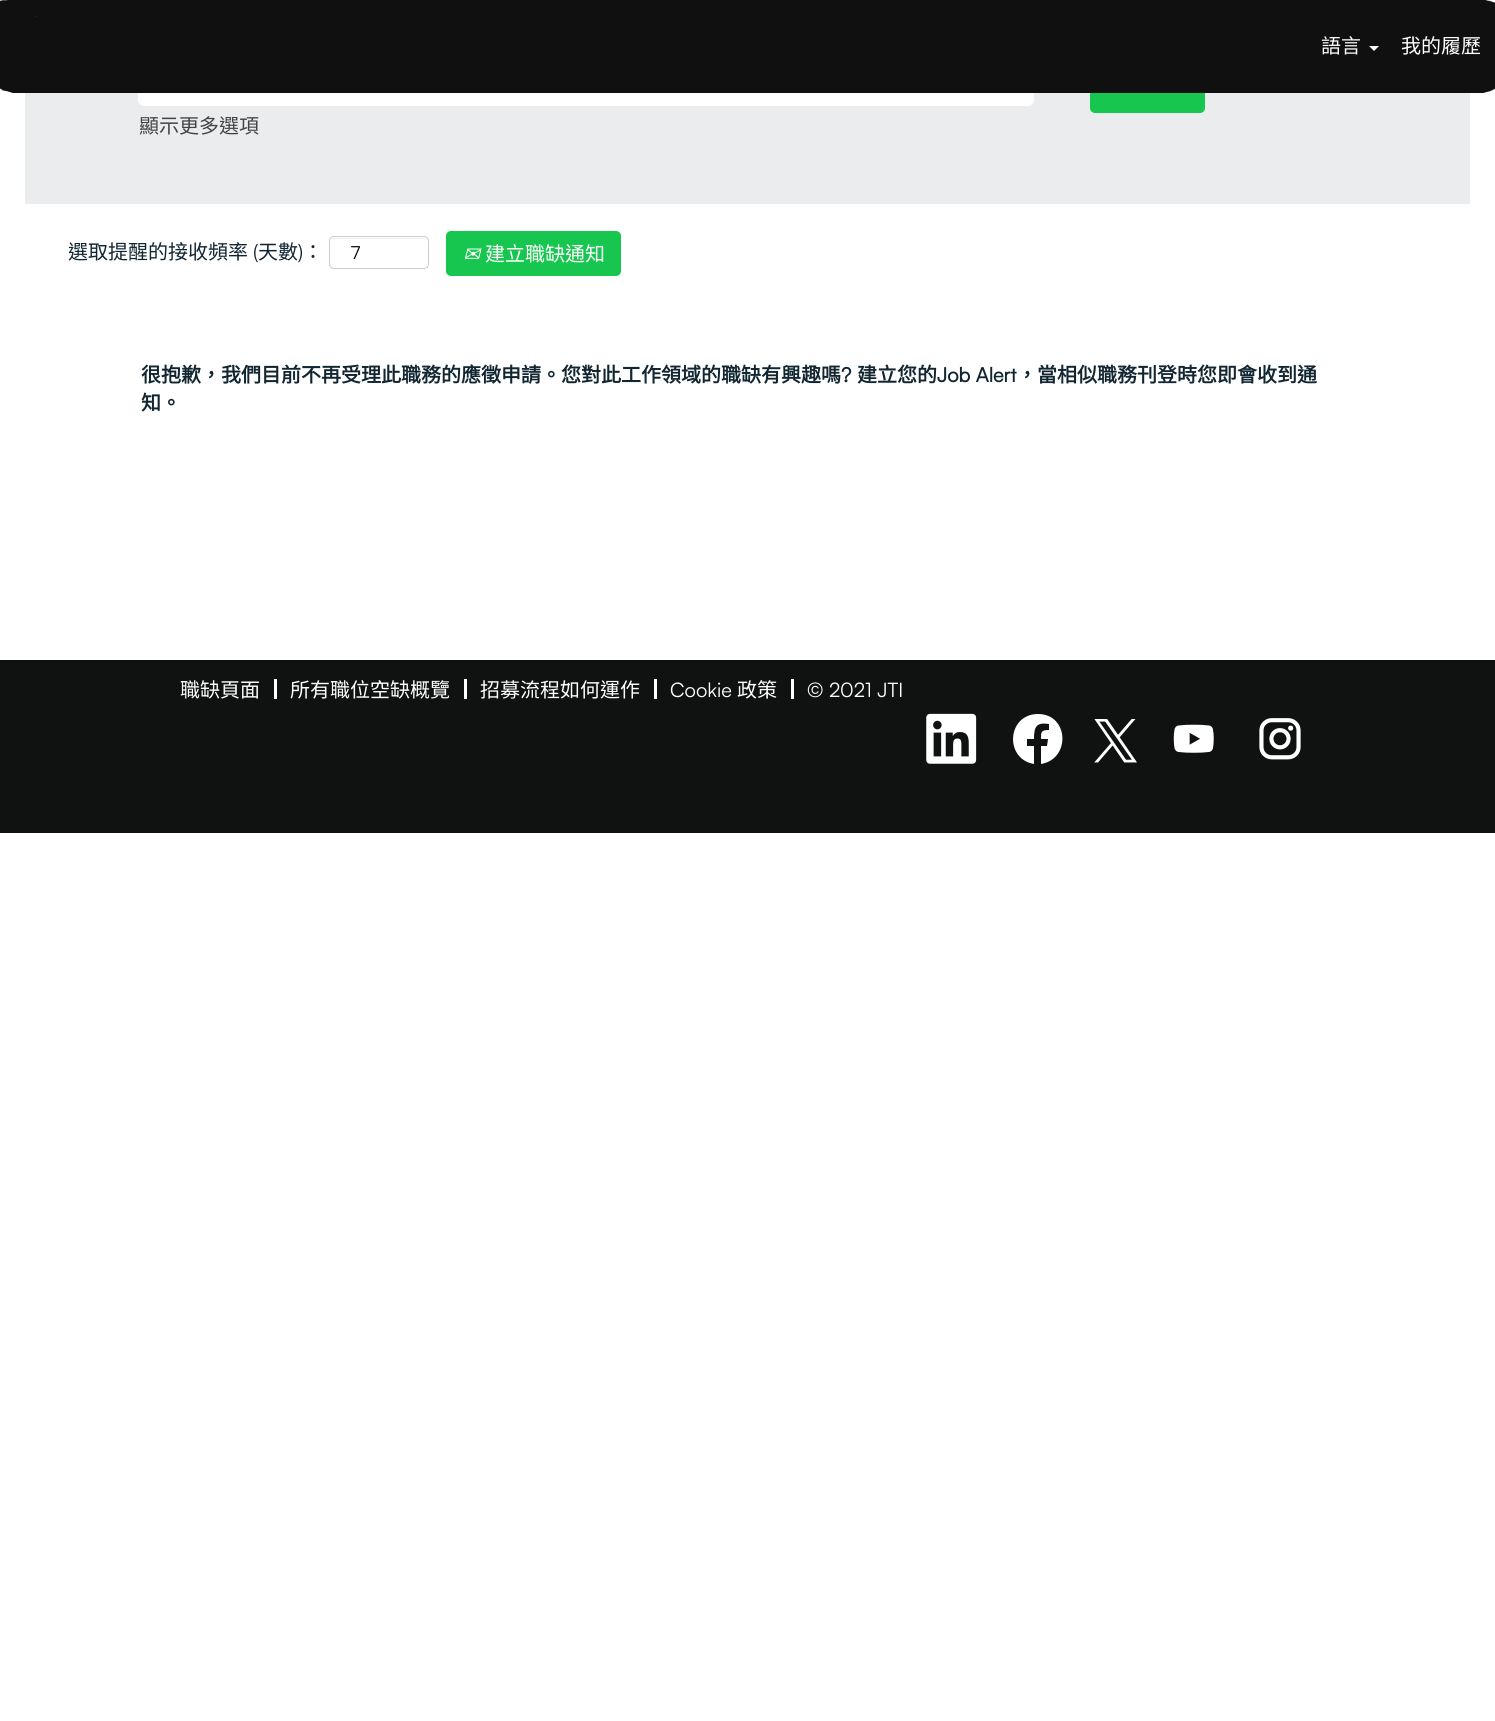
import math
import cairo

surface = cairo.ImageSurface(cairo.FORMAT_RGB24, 1495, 1721)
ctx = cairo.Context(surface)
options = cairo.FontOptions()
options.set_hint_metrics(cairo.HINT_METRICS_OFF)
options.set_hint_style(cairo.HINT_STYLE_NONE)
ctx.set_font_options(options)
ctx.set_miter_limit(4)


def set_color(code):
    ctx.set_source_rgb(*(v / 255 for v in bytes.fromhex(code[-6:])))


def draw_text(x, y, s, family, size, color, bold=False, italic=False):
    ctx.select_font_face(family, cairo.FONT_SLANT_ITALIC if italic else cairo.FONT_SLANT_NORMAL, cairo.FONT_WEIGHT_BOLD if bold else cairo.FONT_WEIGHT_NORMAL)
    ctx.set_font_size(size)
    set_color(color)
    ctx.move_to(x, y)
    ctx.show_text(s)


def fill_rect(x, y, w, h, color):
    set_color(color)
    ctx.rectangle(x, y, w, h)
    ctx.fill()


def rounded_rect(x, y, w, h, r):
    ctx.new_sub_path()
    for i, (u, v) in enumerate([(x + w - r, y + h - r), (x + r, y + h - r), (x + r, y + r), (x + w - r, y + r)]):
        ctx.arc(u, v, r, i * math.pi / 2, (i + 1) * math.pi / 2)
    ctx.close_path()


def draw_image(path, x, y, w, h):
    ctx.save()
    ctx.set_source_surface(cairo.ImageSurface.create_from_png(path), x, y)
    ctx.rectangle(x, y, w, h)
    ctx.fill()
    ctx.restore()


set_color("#ffffff")
ctx.paint()
fill_rect(25, 93, 1445, 111, "#ebeced")
set_color("#17c64f")
rounded_rect(1090, 66, 115, 47, 5)
ctx.fill()
set_color("#ffffff")
rounded_rect(138, 73, 896, 33, 6)
ctx.fill()
draw_image("assets/img1.png", 0, 0, 1495, 93)
draw_text(1321, 53, "語言", "Noto Sans CJK TC", 20, "#ffffff")
ctx.new_path()
ctx.move_to(1369, 46)
ctx.line_to(1379, 46)
ctx.line_to(1374, 51)
ctx.close_path()
ctx.fill()
draw_text(1401, 53, "我的履歷", "Noto Sans CJK TC", 20, "#ffffff")
draw_text(139, 133, "顯示更多選項", "Noto Sans CJK TC", 20, "#444444")
draw_text(68, 259, "選取提醒的接收頻率", "Noto Sans CJK TC", 20, "#122632")
draw_text(253, 259, "(", "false", 20, "#122632")
draw_text(258, 259, "天數", "Noto Sans CJK TC", 20, "#122632")
draw_text(298, 259, ")", "false", 20, "#122632")
draw_text(303, 259, "：", "Noto Sans CJK TC", 20, "#122632")
set_color("#ececec")
ctx.new_path()
ctx.move_to(334, 239)
ctx.line_to(424, 239)
ctx.curve_to(426, 239, 428, 240, 428, 242)
ctx.curve_to(428, 240, 426, 238, 424, 238)
ctx.line_to(334, 238)
ctx.curve_to(332, 238, 330, 240, 330, 242)
ctx.curve_to(330, 240, 332, 239, 334, 239)
ctx.close_path()
ctx.fill()
rounded_rect(329.5, 236.5, 99, 32, 4.5)
set_color("#cccccc")
ctx.set_line_width(1)
ctx.stroke()
draw_text(351, 259, "7", "false", 18, "#000000")
set_color("#17c64f")
rounded_rect(446, 231, 175, 45, 5)
ctx.fill()
draw_text(463, 261, "✉", "DejaVu Sans", 20, "#ffffff", italic=True)
draw_text(485, 261, "建立職缺通知", "Noto Sans CJK TC", 20, "#ffffff")
draw_text(141, 382, "很抱歉，我們目前不再受理此職務的應徵申請。您對此工作領域的職缺有興趣嗎", "Noto Sans CJK TC", 20, "#122632", bold=True)
draw_text(841, 382, "?", "false", 20, "#122632", bold=True)
draw_text(857, 382, "建立您的", "Noto Sans CJK TC", 20, "#122632", bold=True)
draw_text(937, 382, "Job Alert", "false", 20, "#122632", bold=True)
draw_text(1017, 382, "，當相似職務刊登時您即會收到通", "Noto Sans CJK TC", 20, "#122632", bold=True)
draw_text(141, 410, "知。", "Noto Sans CJK TC", 20, "#122632", bold=True)
fill_rect(0, 660, 1495, 173, "#101111")
fill_rect(274, 679, 3, 20, "#ffffff")
draw_text(180, 697, "職缺頁面", "Noto Sans CJK TC", 20, "#ffffff")
fill_rect(464, 679, 3, 20, "#ffffff")
draw_text(290, 697, "所有職位空缺概覽", "Noto Sans CJK TC", 20, "#ffffff")
fill_rect(654, 679, 3, 20, "#ffffff")
draw_text(480, 697, "招募流程如何運作", "Noto Sans CJK TC", 20, "#ffffff")
fill_rect(791, 679, 3, 20, "#ffffff")
draw_text(670, 697, "Cookie", "false", 20, "#ffffff")
draw_text(737, 697, "政策", "Noto Sans CJK TC", 20, "#ffffff")
draw_text(807, 697, "© 2021 JTI", "false", 20, "#ffffff")
draw_image("assets/img2.png", 926, 713, 51, 51)
ctx.new_path()
ctx.move_to(1038, 714)
ctx.curve_to(1007, 714, 1004, 759, 1034, 764)
ctx.line_to(1034, 746)
ctx.line_to(1027, 746)
ctx.line_to(1027, 739)
ctx.line_to(1034, 739)
ctx.curve_to(1034, 727, 1036, 722, 1049, 724)
ctx.line_to(1049, 730)
ctx.curve_to(1041, 730, 1041, 732, 1041, 739)
ctx.line_to(1048, 739)
ctx.line_to(1047, 746)
ctx.line_to(1041, 746)
ctx.line_to(1041, 764)
ctx.curve_to(1071, 759, 1069, 714, 1038, 714)
ctx.close_path()
ctx.fill()
draw_image("assets/img3.png", 1094, 719, 43, 44)
draw_image("assets/img4.png", 1173, 724, 41, 29)
draw_image("assets/img5.png", 1259, 718, 42, 42)
surface.write_to_png("output.png")
